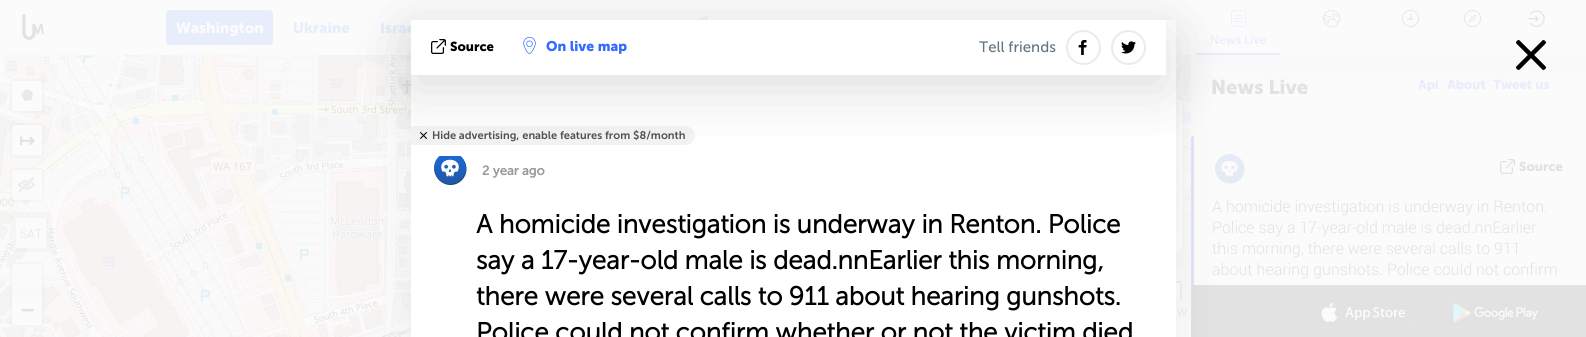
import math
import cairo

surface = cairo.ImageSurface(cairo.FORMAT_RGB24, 1586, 337)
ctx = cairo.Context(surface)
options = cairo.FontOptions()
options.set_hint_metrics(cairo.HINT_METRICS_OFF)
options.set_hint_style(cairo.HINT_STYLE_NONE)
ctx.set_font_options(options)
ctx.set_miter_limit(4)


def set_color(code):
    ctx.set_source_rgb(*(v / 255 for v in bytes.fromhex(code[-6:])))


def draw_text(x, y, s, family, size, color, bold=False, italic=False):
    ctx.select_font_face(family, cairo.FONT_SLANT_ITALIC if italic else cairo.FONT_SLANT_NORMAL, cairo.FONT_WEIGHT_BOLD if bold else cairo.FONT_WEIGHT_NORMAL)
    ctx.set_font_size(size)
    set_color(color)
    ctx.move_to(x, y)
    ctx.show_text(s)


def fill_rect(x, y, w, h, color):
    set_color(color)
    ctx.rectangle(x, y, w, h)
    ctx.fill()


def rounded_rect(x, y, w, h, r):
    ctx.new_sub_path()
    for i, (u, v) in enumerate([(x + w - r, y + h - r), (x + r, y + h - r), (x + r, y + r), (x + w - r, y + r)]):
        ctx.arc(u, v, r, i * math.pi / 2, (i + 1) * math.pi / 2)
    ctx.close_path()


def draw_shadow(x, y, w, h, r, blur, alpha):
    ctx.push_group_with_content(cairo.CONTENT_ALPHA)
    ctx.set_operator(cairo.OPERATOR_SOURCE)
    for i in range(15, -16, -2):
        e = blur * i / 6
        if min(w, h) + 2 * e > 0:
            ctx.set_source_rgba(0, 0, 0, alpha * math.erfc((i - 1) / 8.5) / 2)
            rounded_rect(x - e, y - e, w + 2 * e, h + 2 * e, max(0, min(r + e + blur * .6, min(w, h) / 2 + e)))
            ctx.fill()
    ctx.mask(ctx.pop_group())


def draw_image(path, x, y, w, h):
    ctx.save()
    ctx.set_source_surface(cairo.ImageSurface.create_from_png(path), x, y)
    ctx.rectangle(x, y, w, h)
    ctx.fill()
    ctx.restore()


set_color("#ffffff")
ctx.paint()
fill_rect(0, 0, 1191, 55, "#fbfbfb")
draw_image("assets/img1.png", 22, 14, 22, 26)
draw_image("assets/img2.png", 697, 16, 11, 4)
set_color("#e7edfb")
rounded_rect(166, 10, 107, 35, 4)
ctx.fill()
draw_text(176, 33, "Washington", "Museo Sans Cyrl", 15, "#fbfbfb", bold=True)
draw_text(293, 33, "Ukraine", "Museo Sans Cyrl", 15, "#e7edfb", bold=True)
draw_text(380, 33, "Israe", "Museo Sans Cyrl", 15, "#e7edfb", bold=True)
draw_image("assets/img3.png", 0, 55, 200, 29)
draw_image("assets/img4.png", 200, 55, 211, 29)
draw_image("assets/img5.png", 1176, 55, 15, 29)
draw_image("assets/img6.png", 0, 84, 200, 253)
draw_image("assets/img7.png", 200, 84, 211, 253)
draw_image("assets/img8.png", 1176, 84, 15, 253)
rounded_rect(11, 80, 32, 32, 3)
ctx.set_source_rgba(0.886, 0.886, 0.886, 0.2)
ctx.stroke()
set_color("#fbfbfb")
rounded_rect(12, 81, 30, 30, 2)
ctx.fill()
draw_image("assets/img9.png", 21, 89, 12, 12)
rounded_rect(11, 124, 32, 33, 3)
ctx.set_source_rgba(0.886, 0.886, 0.886, 0.2)
ctx.stroke()
set_color("#fbfbfb")
ctx.new_path()
ctx.move_to(14, 125)
ctx.line_to(40, 125)
ctx.curve_to(41, 125, 42, 126, 42, 127)
ctx.line_to(42, 156)
ctx.line_to(12, 156)
ctx.line_to(12, 127)
ctx.curve_to(12, 126, 13, 125, 14, 125)
ctx.close_path()
ctx.fill()
fill_rect(12, 155, 30, 1, "#f6f6f6")
draw_text(19, 147, "↦", "DejaVu Sans", 19, "#e2e2e2", bold=True)
rounded_rect(11, 169, 32, 32, 3)
ctx.set_source_rgba(0.886, 0.886, 0.886, 0.2)
ctx.stroke()
set_color("#fbfbfb")
rounded_rect(12, 170, 30, 30, 2)
ctx.fill()
draw_image("assets/img10.png", 18, 177, 17, 15)
rounded_rect(11, 213, 40, 38, 3)
ctx.set_source_rgba(0.886, 0.886, 0.886, 0.2)
ctx.stroke()
rounded_rect(13, 215, 36, 34, 3)
ctx.stroke()
set_color("#fbfbfb")
ctx.new_path()
ctx.move_to(16, 218)
ctx.line_to(46, 218)
ctx.line_to(46, 248)
ctx.line_to(16, 248)
ctx.line_to(16, 246)
ctx.close_path()
ctx.fill()
ctx.set_source_rgba(0.886, 0.886, 0.886, 0.2)
ctx.rectangle(15, 216, 32, 2)
ctx.fill()
ctx.rectangle(46, 217, 2, 30)
ctx.fill()
ctx.rectangle(14, 217, 2, 30)
ctx.fill()
draw_text(20, 238, "SAT", "Roboto Light", 12, "#e2e2e2")
rounded_rect(11, 263, 32, 63, 3)
ctx.set_source_rgba(0.886, 0.886, 0.886, 0.2)
ctx.stroke()
set_color("#fafafa")
ctx.new_path()
ctx.move_to(14, 264)
ctx.line_to(40, 264)
ctx.curve_to(41, 264, 42, 265, 42, 266)
ctx.line_to(42, 295)
ctx.line_to(12, 295)
ctx.line_to(12, 266)
ctx.curve_to(12, 265, 13, 264, 14, 264)
ctx.close_path()
ctx.fill()
fill_rect(12, 294, 30, 1, "#f6f6f6")
set_color("#fbfbfb")
ctx.new_path()
ctx.move_to(12, 295)
ctx.line_to(42, 295)
ctx.line_to(42, 323)
ctx.curve_to(42, 324, 41, 325, 40, 325)
ctx.line_to(14, 325)
ctx.curve_to(13, 325, 12, 324, 12, 323)
ctx.close_path()
ctx.fill()
draw_text(21, 317, "−", "DejaVu Sans Mono", 22, "#e2e2e2", bold=True)
set_color("#f1f1f1")
draw_shadow(1026, 99, 156, 156, 8, 3.5, 1)
rounded_rect(1027.5, 99.5, 153, 153, 6.5)
set_color("#fbfbfb")
ctx.set_line_width(3)
ctx.stroke()
draw_image("assets/img11.png", 1176, 101, 3, 150)
ctx.new_path()
ctx.move_to(1162, 232)
ctx.line_to(1179, 232)
ctx.line_to(1179, 246)
ctx.curve_to(1179, 249, 1177, 251, 1174, 251)
ctx.line_to(1160, 251)
ctx.line_to(1160, 234)
ctx.curve_to(1160, 233, 1161, 232, 1162, 232)
ctx.close_path()
ctx.fill()
ctx.set_source_rgba(0.984, 0.984, 0.984, 0.8)
ctx.rectangle(1176, 283, 4, 16)
ctx.fill()
fill_rect(1176, 281, 6, 2, "#eeeeee")
fill_rect(1180, 281, 2, 18, "#eeeeee")
ctx.set_source_rgba(0.984, 0.984, 0.984, 0.7)
ctx.rectangle(1176, 304, 15, 16)
ctx.fill()
draw_text(1177, 316, "W", "Liberation Sans", 11, "#e2eef3")
ctx.set_source_rgba(0.984, 0.984, 0.984, 0.8)
ctx.rectangle(1176, 320, 15, 17)
ctx.fill()
fill_rect(1191, 0, 395, 285, "#fbfbfb")
draw_image("assets/img12.png", 1323, 10, 17, 17)
draw_image("assets/img13.png", 1402, 10, 17, 17)
draw_image("assets/img14.png", 1464, 10, 17, 17)
draw_image("assets/img15.png", 1528, 10, 17, 17)
fill_rect(1196, 53, 84, 2, "#e7edfb")
draw_image("assets/img16.png", 1231, 10, 15, 17)
draw_text(1210, 44, "News Live", "Museo Sans Cyrl", 12, "#e7edfb")
draw_image("assets/img17.png", 1191, 55, 395, 43)
draw_text(1211, 94, "News Live", "Museo Sans Cyrl", 20, "#e2e2e2", bold=True)
draw_text(1418, 89, "Api", "Museo Sans Cyrl", 13, "#e7edfb", bold=True)
draw_text(1447, 89, "About", "Museo Sans Cyrl", 13, "#e7edfb", bold=True)
draw_text(1493, 89, "Tweet us", "Museo Sans Cyrl", 13, "#e7edfb", bold=True)
set_color("#e2e2fb")
ctx.new_path()
ctx.move_to(1194, 136)
ctx.curve_to(1192, 136, 1191, 137, 1191, 139)
ctx.line_to(1191, 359)
ctx.curve_to(1191, 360, 1191, 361, 1192, 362)
ctx.line_to(1194, 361)
ctx.close_path()
ctx.fill()
draw_image("assets/img18.png", 1215, 154, 30, 30)
draw_image("assets/img19.png", 1500, 159, 15, 15)
draw_text(1519, 171, "Source", "Museo Sans Cyrl", 13, "#e2e2e2", bold=True)
draw_text(1212, 212, "A homicide investigation is underway in Renton.", "Roboto Light", 16, "#e2e2e2")
draw_text(1212, 233, "Police say a 17-year-old male is dead.nnEarlier", "Roboto Light", 16, "#e2e2e2")
draw_text(1212, 254, "this morning, there were several calls to 911", "Roboto Light", 16, "#e2e2e2")
draw_text(1212, 275, "about hearing gunshots. Police could not confirm", "Roboto Light", 16, "#e2e2e2")
fill_rect(1191, 285, 395, 52, "#e2e2e2")
draw_image("assets/img20.png", 1315, 298, 101, 30)
draw_image("assets/img21.png", 1446, 298, 101, 30)
set_color("#000000")
draw_shadow(411, 45, 765, 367, 0, 25, 0.05)
fill_rect(411, 20, 765, 317, "#ffffff")
set_color("#f3f3f3")
ctx.new_path()
ctx.move_to(411, 126)
ctx.line_to(685.5, 126)
ctx.curve_to(690.5, 126, 695, 130.5, 695, 135.5)
ctx.curve_to(695, 140.5, 690.5, 145, 685.5, 145)
ctx.line_to(411, 145)
ctx.close_path()
ctx.fill()
draw_image("assets/img27.png", 420, 132, 7, 7)
draw_image("assets/img28.png", 434, 156, 33, 29)
ctx.save()
ctx.set_fill_rule(cairo.FILL_RULE_EVEN_ODD)
ctx.new_path()
ctx.move_to(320, 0)
ctx.line_to(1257, 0)
ctx.line_to(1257, 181)
ctx.line_to(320, 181)
ctx.close_path()
ctx.move_to(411, 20)
ctx.line_to(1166, 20)
ctx.line_to(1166, 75)
ctx.line_to(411, 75)
ctx.close_path()
ctx.clip()
set_color("#100f0f")
draw_shadow(411, 35, 755, 55, 0, 30, 0.14)
ctx.restore()
draw_image("assets/img22.png", 431, 39, 15, 15)
draw_text(450, 51, "Source", "Museo Sans Cyrl", 13, "#000000", bold=True)
draw_image("assets/img23.png", 523, 37, 13, 17)
draw_text(546, 51, "On live map", "Museo Sans Cyrl", 14, "#346afe", bold=True)
draw_text(979, 52, "Tell friends", "Museo Sans Cyrl", 15, "#66757f")
draw_image("assets/img24.png", 1078, 40, 9, 15)
ctx.arc(1083.5, 47.5, 16.5, 0, 2 * math.pi)
set_color("#e6ecef")
ctx.set_line_width(2)
ctx.stroke()
draw_image("assets/img25.png", 1121, 41, 15, 13)
ctx.arc(1128.5, 47.5, 16.5, 0, 2 * math.pi)
ctx.stroke()
draw_image("assets/img26.png", 1516, 40, 30, 30)
draw_text(432, 139, "Hide advertising, enable features from $8/month", "Museo Sans Cyrl SemiBold", 11, "#505050")
draw_text(482, 175, "2 year ago", "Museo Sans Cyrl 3", 13, "#999999", bold=True)
draw_text(476, 233, "A homicide investigation is underway in Renton. Police", "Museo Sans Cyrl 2", 26, "#000000", bold=True)
draw_text(476, 269, "say a 17-year-old male is dead.nnEarlier this morning,", "Museo Sans Cyrl 2", 26, "#000000", bold=True)
draw_text(476, 305, "there were several calls to 911 about hearing gunshots.", "Museo Sans Cyrl 2", 26, "#000000", bold=True)
draw_text(476, 341, "Police could not confirm whether or not the victim died", "Museo Sans Cyrl 2", 26, "#000000", bold=True)
surface.write_to_png("output.png")
